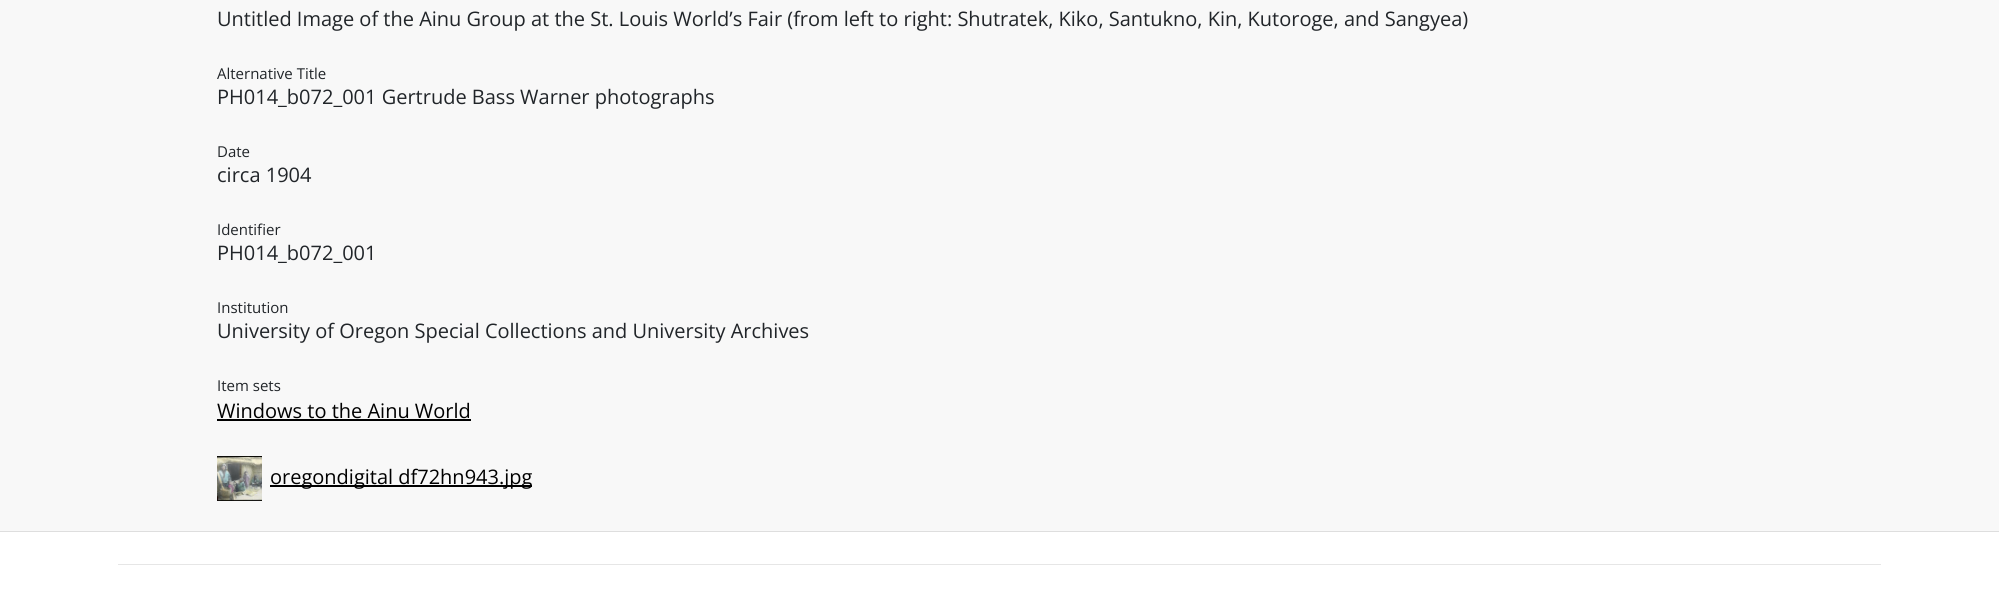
import math
import cairo

surface = cairo.ImageSurface(cairo.FORMAT_RGB24, 1999, 611)
ctx = cairo.Context(surface)
options = cairo.FontOptions()
options.set_hint_metrics(cairo.HINT_METRICS_OFF)
options.set_hint_style(cairo.HINT_STYLE_NONE)
ctx.set_font_options(options)
ctx.set_miter_limit(4)


def set_color(code):
    ctx.set_source_rgb(*(v / 255 for v in bytes.fromhex(code[-6:])))


def draw_text(x, y, s, family, size, color, bold=False, italic=False):
    ctx.select_font_face(family, cairo.FONT_SLANT_ITALIC if italic else cairo.FONT_SLANT_NORMAL, cairo.FONT_WEIGHT_BOLD if bold else cairo.FONT_WEIGHT_NORMAL)
    ctx.set_font_size(size)
    set_color(color)
    ctx.move_to(x, y)
    ctx.show_text(s)


def fill_rect(x, y, w, h, color):
    set_color(color)
    ctx.rectangle(x, y, w, h)
    ctx.fill()


def draw_image(path, x, y, w, h):
    ctx.save()
    ctx.set_source_surface(cairo.ImageSurface.create_from_png(path), x, y)
    ctx.rectangle(x, y, w, h)
    ctx.fill()
    ctx.restore()


set_color("#f8f8f8")
ctx.paint()
draw_text(217, 26, "Untitled Image of the Ainu Group at the St. Louis World’s Fair (from left to right: Shutratek, Kiko, Santukno, Kin, Kutoroge, and Sangyea)", "Open Sans", 20, "#212529")
draw_text(217, 79, "Alternative Title", "Open Sans", 15, "#212529")
draw_text(217, 104, "PH014_b072_001 Gertrude Bass Warner photographs", "Open Sans", 20, "#212529")
draw_text(217, 157, "Date", "Open Sans", 15, "#212529")
draw_text(217, 182, "circa 1904", "Open Sans", 20, "#212529")
draw_text(217, 235, "Identifier", "Open Sans", 15, "#212529")
draw_text(217, 260, "PH014_b072_001", "Open Sans", 20, "#212529")
draw_text(217, 313, "Institution", "Open Sans", 15, "#212529")
draw_text(217, 338, "University of Oregon Special Collections and University Archives", "Open Sans", 20, "#212529")
draw_text(217, 391, "Item sets", "Open Sans", 15, "#212529")
draw_text(217, 418, "Windows to the Ainu World", "Open Sans", 20, "#000000")
fill_rect(217, 419, 254, 2, "#000000")
draw_image("assets/img1.png", 217, 456, 45, 45)
fill_rect(270, 485, 262, 2, "#000000")
draw_text(270, 484, "oregondigital df72hn943.jpg", "Open Sans", 20, "#000000")
fill_rect(0, 532, 1999, 79, "#ffffff")
fill_rect(0, 531, 1999, 1, "#dedede")
fill_rect(118, 564, 1763, 1, "#e6e6e6")
surface.write_to_png("output.png")
